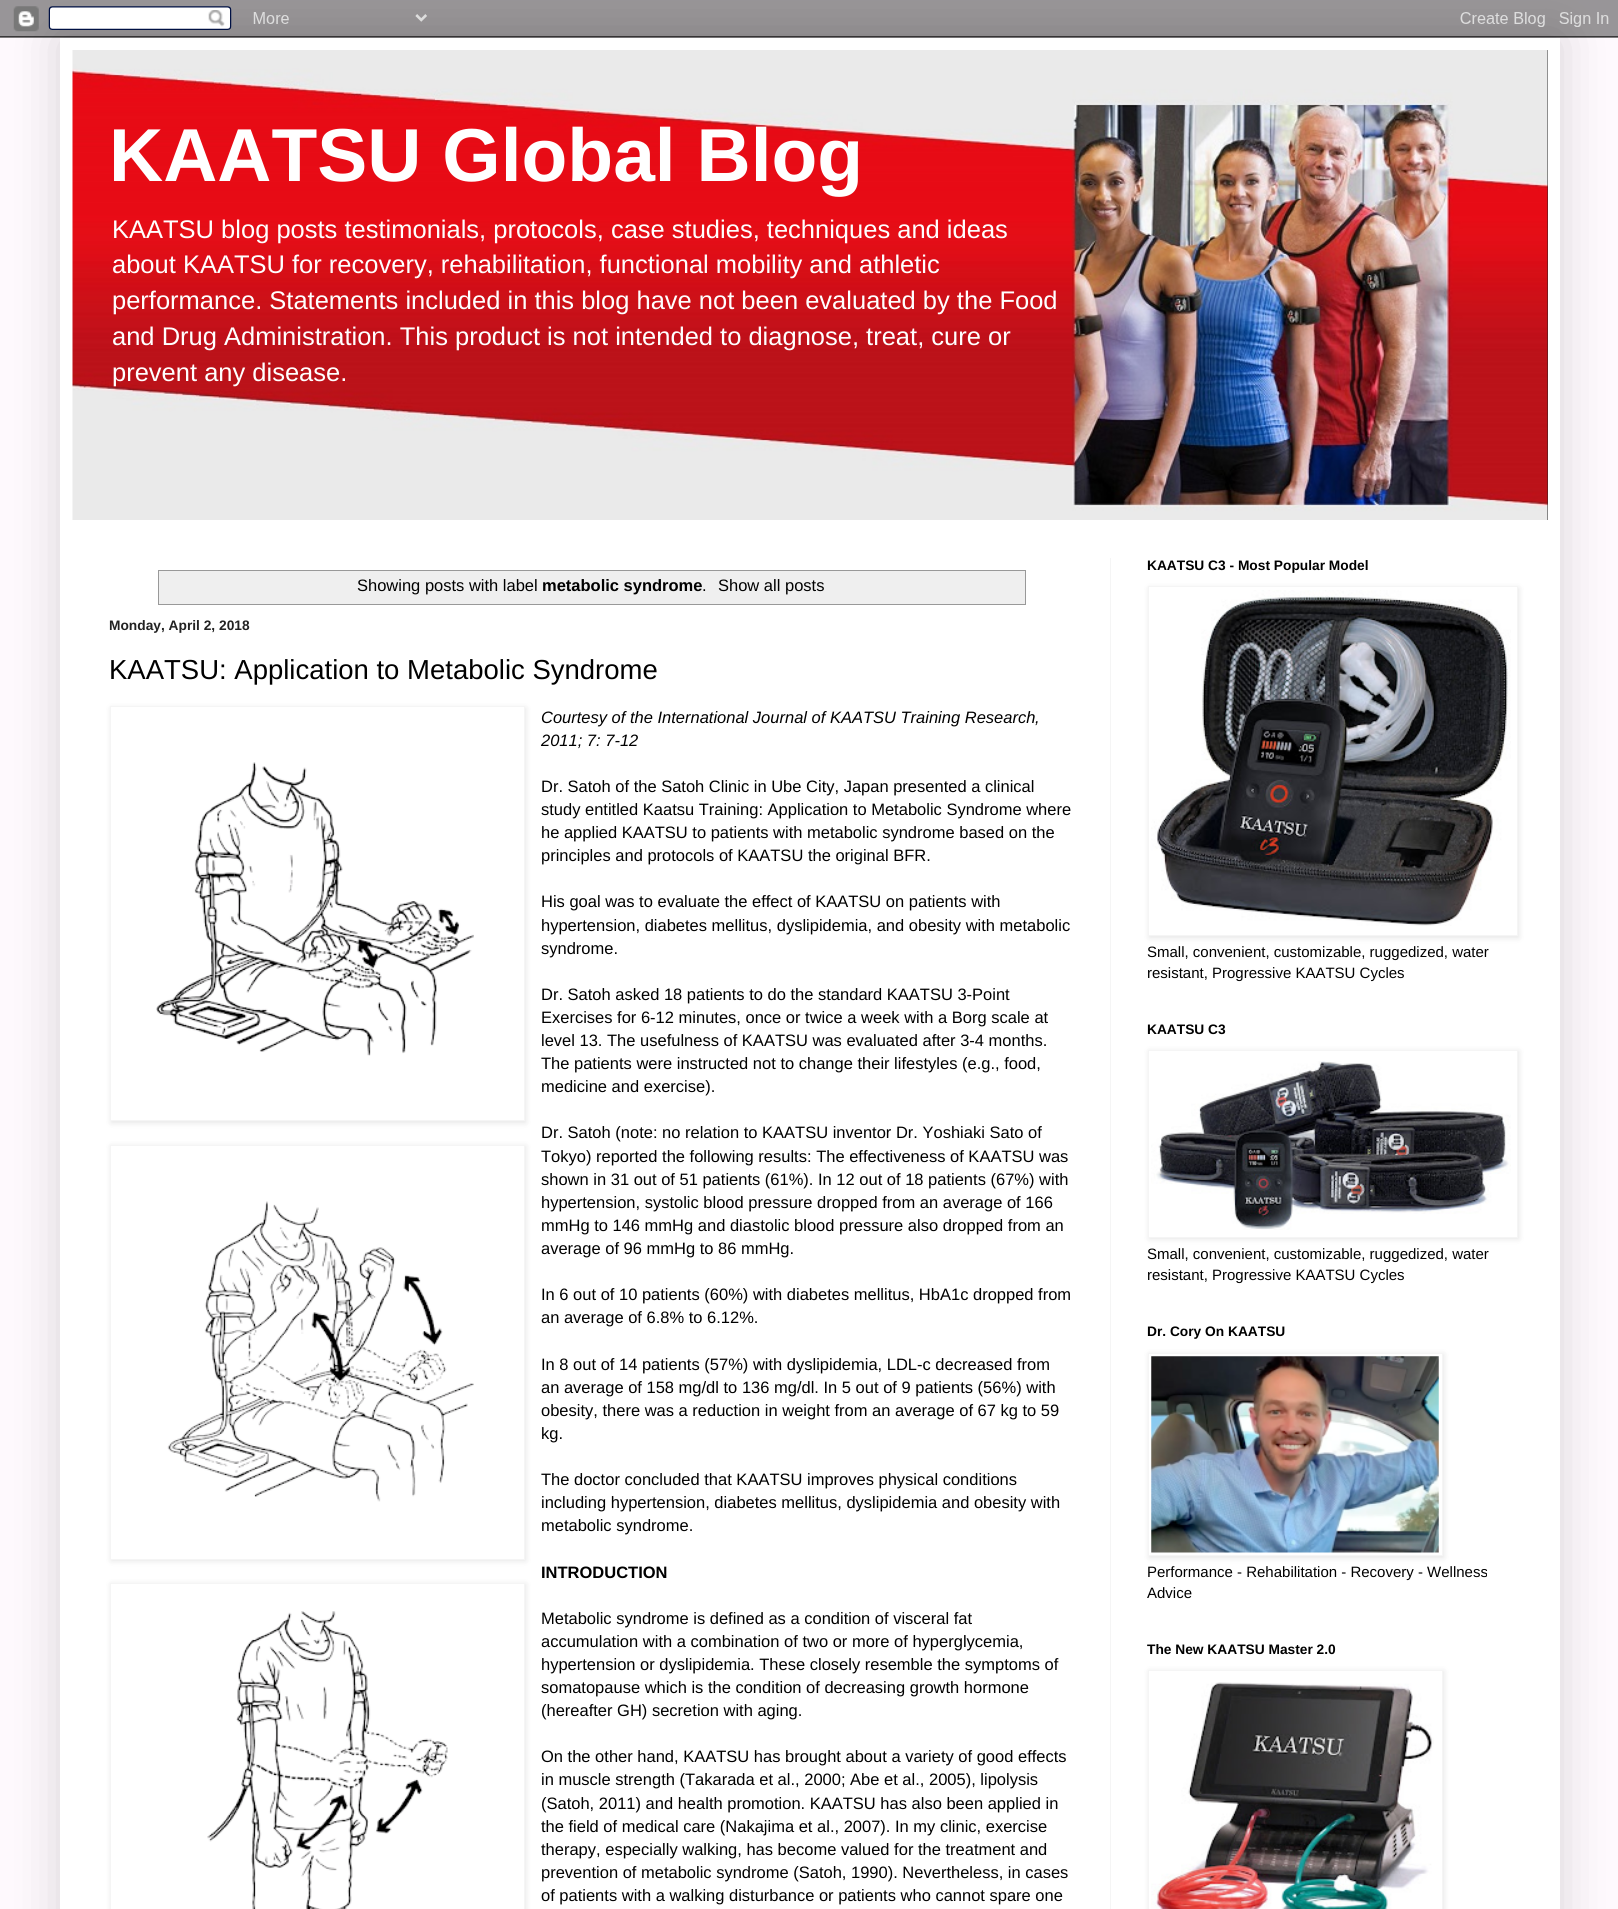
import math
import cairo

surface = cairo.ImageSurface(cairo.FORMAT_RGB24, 1618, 1909)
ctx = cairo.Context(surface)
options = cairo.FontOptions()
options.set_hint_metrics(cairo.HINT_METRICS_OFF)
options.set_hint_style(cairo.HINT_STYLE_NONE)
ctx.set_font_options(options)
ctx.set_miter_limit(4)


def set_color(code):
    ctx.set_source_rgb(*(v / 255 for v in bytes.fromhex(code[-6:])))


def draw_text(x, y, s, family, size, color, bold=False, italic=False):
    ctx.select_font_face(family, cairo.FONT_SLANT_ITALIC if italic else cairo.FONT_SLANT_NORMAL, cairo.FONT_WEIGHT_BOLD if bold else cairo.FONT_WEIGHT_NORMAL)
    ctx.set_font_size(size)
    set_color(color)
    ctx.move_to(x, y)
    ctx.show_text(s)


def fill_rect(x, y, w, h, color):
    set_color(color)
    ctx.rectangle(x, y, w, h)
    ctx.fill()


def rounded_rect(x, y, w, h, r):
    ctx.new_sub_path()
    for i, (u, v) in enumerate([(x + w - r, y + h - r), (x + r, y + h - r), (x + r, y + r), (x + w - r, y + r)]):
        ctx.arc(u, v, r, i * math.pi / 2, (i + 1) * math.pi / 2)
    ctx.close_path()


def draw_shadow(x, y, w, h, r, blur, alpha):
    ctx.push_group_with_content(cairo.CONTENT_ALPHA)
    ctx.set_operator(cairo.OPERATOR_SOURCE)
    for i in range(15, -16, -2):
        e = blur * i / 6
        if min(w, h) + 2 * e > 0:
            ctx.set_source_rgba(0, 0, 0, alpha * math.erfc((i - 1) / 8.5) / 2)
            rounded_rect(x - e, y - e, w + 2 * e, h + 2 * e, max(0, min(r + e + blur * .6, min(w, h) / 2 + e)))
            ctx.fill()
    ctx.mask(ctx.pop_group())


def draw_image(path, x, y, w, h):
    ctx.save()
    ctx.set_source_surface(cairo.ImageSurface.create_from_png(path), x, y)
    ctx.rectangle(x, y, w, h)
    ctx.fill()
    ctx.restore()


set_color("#fef9fd")
ctx.paint()
set_color("#000000")
draw_shadow(60, 38, 1500, 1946, 0, 25, 0.15)
draw_image("assets/img1.png", 0, 0, 1618, 38)
fill_rect(60, 38, 1500, 1871, "#ffffff")
fill_rect(1547, 50, 1, 470, "#222222")
draw_image("assets/img2.png", 1547, 50, 1, 147)
draw_image("assets/img3.png", 72, 50, 1476, 470)
draw_text(109, 181, "KAATSU Global Blog", "Liberation Sans", 75, "#ffffff", bold=True)
draw_text(112, 238, "KAATSU blog posts testimonials, protocols, case studies, techniques and ideas", "Liberation Sans", 25.5, "#ffffff")
draw_text(112, 273, "about KAATSU for recovery, rehabilitation, functional mobility and athletic", "Liberation Sans", 25.5, "#ffffff")
draw_text(112, 309, "performance. Statements included in this blog have not been evaluated by the Food", "Liberation Sans", 25.5, "#ffffff")
draw_text(112, 345, "and Drug Administration. This product is not intended to diagnose, treat, cure or", "Liberation Sans", 25.5, "#ffffff")
draw_text(112, 381, "prevent any disease.", "Liberation Sans", 25.5, "#ffffff")
fill_rect(1110, 558, 1, 1351, "#f5f5f5")
ctx.rectangle(158.5, 570.5, 867, 34)
set_color("#999999")
ctx.set_line_width(1)
ctx.stroke()
fill_rect(159, 571, 866, 33, "#efefef")
draw_text(357, 591, "Showing posts with label", "Liberation Sans", 16.5, "#000000")
draw_text(542, 591, "metabolic syndrome", "Liberation Sans", 16.5, "#000000", bold=True)
draw_text(702, 591, ".", "Liberation Sans", 16.5, "#000000")
draw_text(718, 591, "Show all posts", "Liberation Sans", 16.5, "#000000")
draw_text(109, 630, "Monday, April 2, 2018", "Liberation Sans", 13.75, "#222222", bold=True)
draw_text(109, 679, "KAATSU: Application to Metabolic Syndrome", "Liberation Sans", 27.5, "#000000")
set_color("#000000")
draw_shadow(111, 708, 415, 415, 0, 3, 0.1)
set_color("#ffffff")
ctx.rectangle(110.5, 706.5, 414, 414)
ctx.fill_preserve()
set_color("#f5f5f5")
ctx.stroke()
draw_image("assets/img4.png", 156, 762, 318, 294)
draw_text(541, 723, "Courtesy of the International Journal of KAATSU Training Research", "Liberation Sans", 16.5, "#000000", italic=True)
draw_text(1035, 723, ",", "Liberation Sans", 16.5, "#000000", italic=True)
draw_text(541, 746, "2011; 7: 7-12", "Liberation Sans", 16.5, "#000000", italic=True)
draw_text(541, 792, "Dr. Satoh of the Satoh Clinic in Ube City, Japan presented a clinical", "Liberation Sans", 16.5, "#000000")
draw_text(541, 815, "study entitled Kaatsu Training: Application to Metabolic Syndrome where", "Liberation Sans", 16.5, "#000000")
draw_text(541, 838, "he applied KAATSU to patients with metabolic syndrome based on the", "Liberation Sans", 16.5, "#000000")
draw_text(541, 861, "principles and protocols of KAATSU the original BFR.", "Liberation Sans", 16.5, "#000000")
draw_text(541, 907, "His goal was to evaluate the effect of KAATSU on patients with", "Liberation Sans", 16.5, "#000000")
draw_text(541, 931, "hypertension, diabetes mellitus, dyslipidemia, and obesity with metabolic", "Liberation Sans", 16.5, "#000000")
draw_text(541, 954, "syndrome.", "Liberation Sans", 16.5, "#000000")
draw_text(541, 1000, "Dr. Satoh asked 18 patients to do the standard KAATSU 3-Point", "Liberation Sans", 16.5, "#000000")
draw_text(541, 1023, "Exercises for 6-12 minutes, once or twice a week with a Borg scale at", "Liberation Sans", 16.5, "#000000")
draw_text(541, 1046, "level 13. The usefulness of KAATSU was evaluated after 3-4 months.", "Liberation Sans", 16.5, "#000000")
draw_text(541, 1069, "The patients were instructed not to change their lifestyles (e.g., food,", "Liberation Sans", 16.5, "#000000")
draw_text(541, 1092, "medicine and exercise).", "Liberation Sans", 16.5, "#000000")
draw_text(541, 1138, "Dr. Satoh (note: no relation to KAATSU inventor Dr. Yoshiaki Sato of", "Liberation Sans", 16.5, "#000000")
ctx.save()
ctx.set_fill_rule(cairo.FILL_RULE_EVEN_ODD)
ctx.new_path()
ctx.move_to(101, 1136)
ctx.line_to(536, 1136)
ctx.line_to(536, 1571)
ctx.line_to(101, 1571)
ctx.close_path()
ctx.move_to(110, 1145)
ctx.line_to(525, 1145)
ctx.line_to(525, 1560)
ctx.line_to(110, 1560)
ctx.close_path()
ctx.clip()
set_color("#000000")
draw_shadow(111, 1146, 415, 415, 0, 3, 0.1)
ctx.restore()
ctx.rectangle(110.5, 1145.5, 414, 414)
set_color("#f5f5f5")
ctx.stroke()
draw_image("assets/img5.png", 167, 1201, 307, 301)
draw_text(541, 1162, "Tokyo) reported the following results: The effectiveness of KAATSU was", "Liberation Sans", 16.5, "#000000")
draw_text(541, 1185, "shown in 31 out of 51 patients (61%). In 12 out of 18 patients (67%) with", "Liberation Sans", 16.5, "#000000")
draw_text(541, 1208, "hypertension, systolic blood pressure dropped from an average of 166", "Liberation Sans", 16.5, "#000000")
draw_text(541, 1231, "mmHg to 146 mmHg and diastolic blood pressure also dropped from an", "Liberation Sans", 16.5, "#000000")
draw_text(541, 1254, "average of 96 mmHg to 86 mmHg.", "Liberation Sans", 16.5, "#000000")
draw_text(541, 1300, "In 6 out of 10 patients (60%) with diabetes mellitus, HbA1c dropped from", "Liberation Sans", 16.5, "#000000")
draw_text(541, 1323, "an average of 6.8% to 6.12%.", "Liberation Sans", 16.5, "#000000")
draw_text(541, 1370, "In 8 out of 14 patients (57%) with dyslipidemia, LDL-c decreased from", "Liberation Sans", 16.5, "#000000")
draw_text(541, 1393, "an average of 158 mg/dl to 136 mg/dl. In 5 out of 9 patients (56%) with", "Liberation Sans", 16.5, "#000000")
draw_text(541, 1416, "obesity, there was a reduction in weight from an average of 67 kg to 59", "Liberation Sans", 16.5, "#000000")
draw_text(541, 1439, "kg.", "Liberation Sans", 16.5, "#000000")
draw_text(541, 1485, "The doctor concluded that KAATSU improves physical conditions", "Liberation Sans", 16.5, "#000000")
draw_text(541, 1508, "including hypertension, diabetes mellitus, dyslipidemia and obesity with", "Liberation Sans", 16.5, "#000000")
draw_text(541, 1531, "metabolic syndrome.", "Liberation Sans", 16.5, "#000000")
draw_text(541, 1578, "INTRODUCTION", "Liberation Sans", 16.5, "#000000", bold=True)
ctx.save()
ctx.set_fill_rule(cairo.FILL_RULE_EVEN_ODD)
ctx.new_path()
ctx.move_to(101, 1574)
ctx.line_to(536, 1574)
ctx.line_to(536, 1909)
ctx.line_to(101, 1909)
ctx.close_path()
ctx.move_to(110, 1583)
ctx.line_to(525, 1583)
ctx.line_to(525, 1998)
ctx.line_to(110, 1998)
ctx.close_path()
ctx.clip()
set_color("#000000")
draw_shadow(111, 1584, 415, 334, 0, 3, 0.1)
ctx.restore()
ctx.rectangle(110.5, 1583.5, 414, 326)
set_color("#f5f5f5")
ctx.stroke()
draw_image("assets/img6.png", 207, 1611, 241, 298)
draw_text(541, 1624, "Metabolic syndrome is defined as a condition of visceral fat", "Liberation Sans", 16.5, "#000000")
draw_text(541, 1647, "accumulation with a combination of two or more of hyperglycemia,", "Liberation Sans", 16.5, "#000000")
draw_text(541, 1670, "hypertension or dyslipidemia. These closely resemble the symptoms of", "Liberation Sans", 16.5, "#000000")
draw_text(541, 1693, "somatopause which is the condition of decreasing growth hormone", "Liberation Sans", 16.5, "#000000")
draw_text(541, 1716, "(hereafter GH) secretion with aging.", "Liberation Sans", 16.5, "#000000")
draw_text(541, 1762, "On the other hand, KAATSU has brought about a variety of good effects", "Liberation Sans", 16.5, "#000000")
draw_text(541, 1785, "in muscle strength (Takarada et al., 2000; Abe et al., 2005), lipolysis", "Liberation Sans", 16.5, "#000000")
draw_text(541, 1809, "(Satoh, 2011) and health promotion. KAATSU has also been applied in", "Liberation Sans", 16.5, "#000000")
draw_text(541, 1832, "the field of medical care (Nakajima et al., 2007). In my clinic, exercise", "Liberation Sans", 16.5, "#000000")
draw_text(541, 1855, "therapy, especially walking, has become valued for the treatment and", "Liberation Sans", 16.5, "#000000")
draw_text(541, 1878, "prevention of metabolic syndrome (Satoh, 1990). Nevertheless, in cases", "Liberation Sans", 16.5, "#000000")
draw_text(541, 1901, "of patients with a walking disturbance or patients who cannot spare one", "Liberation Sans", 16.5, "#000000")
draw_text(1147, 570, "KAATSU C3 - Most Popular Model", "Liberation Sans", 13.75, "#000000", bold=True)
set_color("#000000")
draw_shadow(1149, 588, 370, 350, 0, 3, 0.1)
set_color("#ffffff")
ctx.rectangle(1148.5, 586.5, 369, 349)
ctx.fill_preserve()
set_color("#f5f5f5")
ctx.stroke()
draw_image("assets/img7.png", 1151, 590, 360, 336)
draw_text(1147, 957, "Small, convenient, customizable, ruggedized, water", "Liberation Sans", 15, "#000000")
draw_text(1147, 978, "resistant, Progressive KAATSU Cycles", "Liberation Sans", 15, "#000000")
draw_text(1147, 1034, "KAATSU C3", "Liberation Sans", 13.75, "#000000", bold=True)
set_color("#000000")
draw_shadow(1149, 1051, 370, 188, 0, 3, 0.1)
set_color("#ffffff")
ctx.rectangle(1148.5, 1050.5, 369, 187)
ctx.fill_preserve()
set_color("#f5f5f5")
ctx.stroke()
draw_image("assets/img8.png", 1151, 1061, 360, 169)
draw_text(1147, 1259, "Small, convenient, customizable, ruggedized, water", "Liberation Sans", 15, "#000000")
draw_text(1147, 1280, "resistant, Progressive KAATSU Cycles", "Liberation Sans", 15, "#000000")
draw_text(1147, 1336, "Dr. Cory On KAATSU", "Liberation Sans", 13.75, "#000000", bold=True)
set_color("#000000")
draw_shadow(1149, 1354, 295, 204, 0, 3, 0.1)
set_color("#ffffff")
ctx.rectangle(1148.5, 1353.5, 294, 202)
ctx.fill_preserve()
set_color("#f5f5f5")
ctx.stroke()
draw_image("assets/img9.png", 1151, 1356, 288, 197)
draw_text(1147, 1577, "Performance - Rehabilitation - Recovery - Wellness", "Liberation Sans", 15, "#000000")
draw_text(1147, 1598, "Advice", "Liberation Sans", 15, "#000000")
draw_text(1147, 1654, "The New KAATSU Master 2.0", "Liberation Sans", 13.75, "#000000", bold=True)
set_color("#000000")
draw_shadow(1149, 1671, 295, 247, 0, 3, 0.1)
set_color("#ffffff")
ctx.rectangle(1148.5, 1670.5, 294, 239)
ctx.fill_preserve()
set_color("#f5f5f5")
ctx.stroke()
draw_image("assets/img10.png", 1151, 1682, 283, 227)
surface.write_to_png("output.png")
